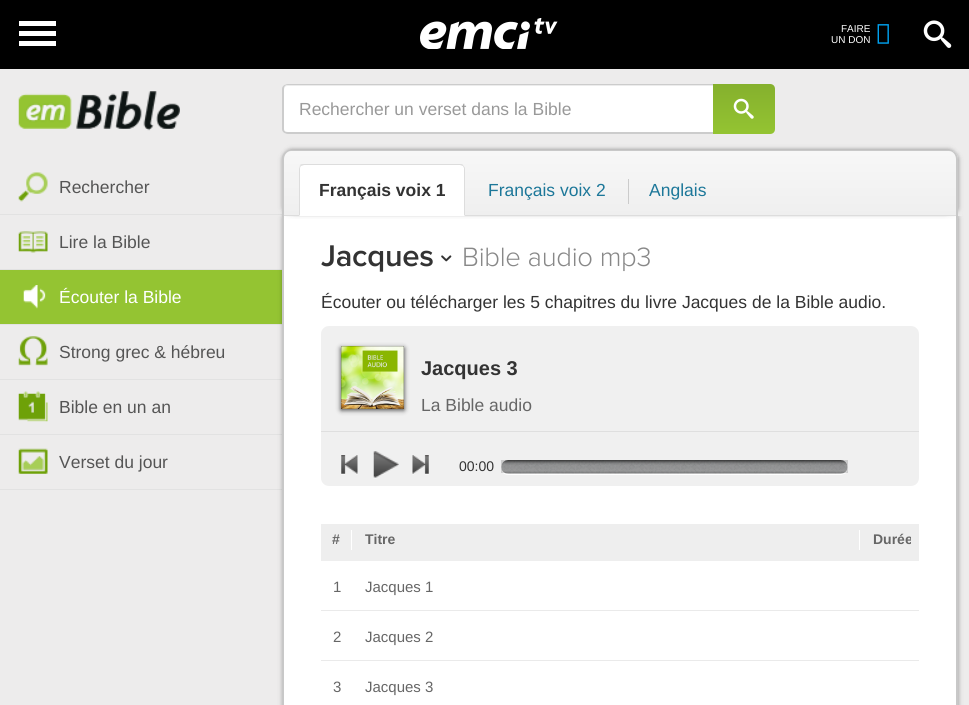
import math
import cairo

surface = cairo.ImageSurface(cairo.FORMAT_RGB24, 969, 705)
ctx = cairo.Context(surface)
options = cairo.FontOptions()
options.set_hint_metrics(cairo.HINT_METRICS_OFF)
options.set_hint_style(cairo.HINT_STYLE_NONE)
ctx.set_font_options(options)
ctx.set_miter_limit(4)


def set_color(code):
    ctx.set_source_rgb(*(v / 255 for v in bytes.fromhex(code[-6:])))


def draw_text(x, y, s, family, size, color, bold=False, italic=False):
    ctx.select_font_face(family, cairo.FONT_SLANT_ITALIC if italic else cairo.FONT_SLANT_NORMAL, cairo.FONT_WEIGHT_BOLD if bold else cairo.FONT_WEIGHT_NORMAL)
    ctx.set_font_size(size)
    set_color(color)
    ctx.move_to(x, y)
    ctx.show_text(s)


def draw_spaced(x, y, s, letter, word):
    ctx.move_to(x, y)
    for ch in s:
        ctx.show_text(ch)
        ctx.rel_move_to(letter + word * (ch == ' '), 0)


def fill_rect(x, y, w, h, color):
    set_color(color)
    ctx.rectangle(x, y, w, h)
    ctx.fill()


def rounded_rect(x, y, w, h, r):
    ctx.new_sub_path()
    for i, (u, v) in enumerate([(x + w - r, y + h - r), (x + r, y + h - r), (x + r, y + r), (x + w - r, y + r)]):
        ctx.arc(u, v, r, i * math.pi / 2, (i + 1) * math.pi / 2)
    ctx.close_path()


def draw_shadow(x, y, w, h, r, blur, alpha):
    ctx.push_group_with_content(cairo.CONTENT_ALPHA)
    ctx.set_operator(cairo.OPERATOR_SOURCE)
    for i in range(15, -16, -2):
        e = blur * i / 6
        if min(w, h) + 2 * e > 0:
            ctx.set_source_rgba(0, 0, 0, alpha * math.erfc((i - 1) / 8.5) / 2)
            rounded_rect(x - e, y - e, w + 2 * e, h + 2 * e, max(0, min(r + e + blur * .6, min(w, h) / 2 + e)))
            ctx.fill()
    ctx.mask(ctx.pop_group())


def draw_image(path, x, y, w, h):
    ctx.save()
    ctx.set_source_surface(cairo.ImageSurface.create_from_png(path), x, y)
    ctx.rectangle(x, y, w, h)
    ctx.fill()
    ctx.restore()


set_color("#edecec")
ctx.paint()
fill_rect(0, 0, 969, 69, "#000000")
fill_rect(19, 21, 37, 5, "#ffffff")
fill_rect(19, 31, 37, 5, "#ffffff")
fill_rect(19, 41, 37, 5, "#ffffff")
draw_image("assets/img1.png", 420, 18, 138, 31)
draw_text(841, 32, "FAIRE", "Liberation Sans", 10, "#ffffff")
draw_text(831, 43, "UN DON", "Liberation Sans", 10, "#ffffff")
draw_image("assets/img2.png", 877, 24, 12, 20)
draw_image("assets/img3.png", 923, 20, 29, 28)
fill_rect(0, 214, 283, 1, "#e2e2e2")
fill_rect(0, 269, 283, 1, "#e2e2e2")
fill_rect(0, 270, 282, 54, "#94c432")
fill_rect(0, 324, 283, 1, "#e2e2e2")
fill_rect(0, 379, 283, 1, "#e2e2e2")
fill_rect(0, 434, 283, 1, "#e2e2e2")
fill_rect(0, 489, 283, 1, "#e2e2e2")
set_color("#000000")
draw_shadow(290, 213, 668, 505, 5, 2.5, 0.4)
draw_shadow(283, 213, 667, 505, 5, 2.5, 0.4)
fill_rect(284, 216, 672, 489, "#ffffff")
set_color("#c8c8c8")
ctx.set_fill_rule(cairo.FILL_RULE_EVEN_ODD)
ctx.new_path()
ctx.move_to(282, 209)
ctx.line_to(958, 209)
ctx.line_to(958, 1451)
ctx.curve_to(958, 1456, 954, 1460, 949, 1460)
ctx.line_to(291, 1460)
ctx.curve_to(286, 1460, 282, 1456, 282, 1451)
ctx.close_path()
ctx.move_to(284, 209)
ctx.line_to(956, 209)
ctx.line_to(956, 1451)
ctx.curve_to(956, 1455, 953, 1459, 949, 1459)
ctx.line_to(291, 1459)
ctx.curve_to(287, 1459, 284, 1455, 284, 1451)
ctx.close_path()
ctx.fill()
fill_rect(283, 208, 679, 8, "#edecec")
set_color("#ffffff")
ctx.new_path()
ctx.move_to(288, 84)
ctx.line_to(714, 84)
ctx.line_to(714, 134)
ctx.line_to(288, 134)
ctx.curve_to(285, 134, 283, 132, 283, 129)
ctx.line_to(283, 89)
ctx.curve_to(283, 86, 285, 84, 288, 84)
ctx.close_path()
ctx.fill()
set_color("#ececec")
ctx.set_fill_rule(cairo.FILL_RULE_WINDING)
ctx.new_path()
ctx.move_to(288, 86)
ctx.line_to(714, 86)
ctx.line_to(714, 85)
ctx.line_to(288, 85)
ctx.curve_to(286, 85, 284, 87, 284, 89)
ctx.line_to(284, 90)
ctx.curve_to(284, 88, 285, 86, 288, 86)
ctx.close_path()
ctx.fill()
set_color("#cccccc")
ctx.set_fill_rule(cairo.FILL_RULE_EVEN_ODD)
ctx.new_path()
ctx.move_to(288, 84)
ctx.line_to(714, 84)
ctx.line_to(714, 134)
ctx.line_to(288, 134)
ctx.curve_to(285, 134, 282, 132, 282, 129)
ctx.line_to(282, 89)
ctx.curve_to(282, 86, 285, 84, 288, 84)
ctx.close_path()
ctx.move_to(288, 85)
ctx.line_to(714, 85)
ctx.line_to(714, 132)
ctx.line_to(288, 132)
ctx.curve_to(285, 132, 284, 131, 284, 129)
ctx.line_to(284, 89)
ctx.curve_to(284, 87, 285, 85, 288, 85)
ctx.close_path()
ctx.fill()
draw_text(299, 115, "Rechercher un verset dans la Bible", "Liberation Sans", 17.5, "#999999")
gradient = cairo.LinearGradient(744, 84, 744, 134)
gradient.add_color_stop_rgba(0, 0.522, 0.69, 0.176, 1)
gradient.add_color_stop_rgba(1, 0.58, 0.769, 0.196, 1)
ctx.set_source(gradient)
ctx.new_path()
ctx.move_to(713, 84)
ctx.line_to(770, 84)
ctx.curve_to(773, 84, 775, 86, 775, 89)
ctx.line_to(775, 129)
ctx.curve_to(775, 132, 773, 134, 770, 134)
ctx.line_to(713, 134)
ctx.close_path()
ctx.fill()
draw_image("assets/img4.png", 733, 98, 21, 21)
set_color("#000000")
draw_shadow(290, 154, 668, 59, 5, 2.5, 0.4)
draw_shadow(283, 154, 667, 59, 5, 2.5, 0.4)
draw_shadow(286, 150, 668, 59, 5, 2.5, 0.4)
ctx.save()
ctx.set_fill_rule(cairo.FILL_RULE_WINDING)
ctx.new_path()
ctx.move_to(292, 150)
ctx.line_to(949, 150)
ctx.curve_to(954, 150, 958, 154, 958, 159)
ctx.line_to(958, 216)
ctx.line_to(283, 216)
ctx.line_to(283, 159)
ctx.curve_to(283, 154, 287, 150, 292, 150)
ctx.close_path()
ctx.clip()
gradient = cairo.LinearGradient(620, 151, 620, 216)
gradient.add_color_stop_rgba(0, 0.969, 0.969, 0.969, 1)
gradient.add_color_stop_rgba(1, 0.937, 0.937, 0.937, 1)
ctx.set_source(gradient)
ctx.rectangle(284, 151, 674, 64)
ctx.fill()
ctx.restore()
set_color("#c8c8c8")
ctx.new_path()
ctx.move_to(291, 150)
ctx.line_to(949, 150)
ctx.curve_to(954, 150, 958, 154, 958, 159)
ctx.line_to(958, 216)
ctx.line_to(282, 216)
ctx.line_to(282, 159)
ctx.curve_to(282, 154, 286, 150, 291, 150)
ctx.close_path()
ctx.move_to(291, 151)
ctx.line_to(949, 151)
ctx.curve_to(953, 151, 956, 155, 956, 159)
ctx.line_to(956, 216)
ctx.line_to(284, 216)
ctx.line_to(284, 159)
ctx.curve_to(284, 155, 287, 151, 291, 151)
ctx.close_path()
ctx.fill()
fill_rect(284, 215, 672, 1, "#dddddd")
set_color("#ffffff")
ctx.new_path()
ctx.move_to(304, 164)
ctx.line_to(460, 164)
ctx.curve_to(463, 164, 465, 166, 465, 169)
ctx.line_to(465, 216)
ctx.line_to(299, 216)
ctx.line_to(299, 169)
ctx.curve_to(299, 166, 301, 164, 304, 164)
ctx.close_path()
ctx.fill()
set_color("#dddddd")
ctx.set_fill_rule(cairo.FILL_RULE_WINDING)
ctx.new_path()
ctx.move_to(304, 164)
ctx.curve_to(302, 164, 301, 164, 300, 165)
ctx.line_to(301, 166)
ctx.line_to(304, 165)
ctx.line_to(460, 165)
ctx.line_to(463, 166)
ctx.line_to(463, 165)
ctx.curve_to(463, 164, 461, 164, 460, 164)
ctx.close_path()
ctx.fill()
ctx.new_path()
ctx.move_to(463, 165)
ctx.curve_to(464, 166, 465, 167, 465, 169)
ctx.line_to(465, 216)
ctx.line_to(464, 215)
ctx.line_to(464, 168)
ctx.line_to(463, 166)
ctx.close_path()
ctx.fill()
ctx.new_path()
ctx.move_to(300, 165)
ctx.curve_to(300, 166, 299, 168, 299, 169)
ctx.line_to(299, 216)
ctx.line_to(300, 215)
ctx.line_to(300, 169)
ctx.curve_to(300, 168, 300, 167, 301, 166)
ctx.close_path()
ctx.fill()
draw_text(319, 196, "Français voix 1", "Liberation Sans", 17.5, "#333333", bold=True)
draw_text(488, 196, "Français voix 2", "Liberation Sans", 17.5, "#1c7799")
fill_rect(628, 179, 1, 25, "#cbcbcb")
draw_text(649, 196, "Anglais", "Liberation Sans", 17.5, "#1c7799")
draw_image("assets/img5.png", 18, 91, 162, 40)
draw_image("assets/img6.png", 18, 172, 30, 30)
draw_text(59, 193, "Rechercher", "Liberation Sans", 17.5, "#555555")
draw_image("assets/img7.png", 18, 231, 30, 22)
draw_text(59, 248, "Lire la Bible", "Liberation Sans", 17.5, "#555555")
draw_image("assets/img8.png", 23, 285, 23, 24)
draw_text(59, 303, "Écouter la Bible", "Liberation Sans", 17.5, "#ffffff")
draw_image("assets/img9.png", 18, 336, 30, 30)
draw_text(59, 358, "Strong grec & hébreu", "Liberation Sans", 17.5, "#555555")
draw_image("assets/img10.png", 18, 391, 30, 31)
draw_text(59, 413, "Bible en un an", "Liberation Sans", 17.5, "#555555")
draw_image("assets/img11.png", 18, 448, 30, 26)
draw_text(59, 468, "Verset du jour", "Liberation Sans", 17.5, "#555555")
ctx.select_font_face("Proxima Nova SemiBold")
ctx.set_font_size(31)
set_color("#333333")
draw_spaced(321, 266, "Jacques", -0.25, 0)
draw_image("assets/img12.png", 441, 255, 11, 7)
ctx.select_font_face("Proxima Nova Light")
ctx.set_font_size(27.5)
set_color("#888888")
draw_spaced(462, 266, "Bible audio mp3", -0.25, 0)
draw_text(321, 308, "Écouter ou télécharger les 5 chapitres du livre Jacques de la Bible audio.", "Liberation Sans", 17.5, "#333333")
set_color("#f0f0f0")
rounded_rect(321, 326, 598, 160, 8)
ctx.fill()
set_color("#000000")
draw_shadow(341, 348, 63, 62, 0, 2.5, 0.75)
fill_rect(341, 346, 63, 63, "#333333")
draw_image("assets/img13.png", 341, 346, 63, 63)
draw_text(421, 375, "Jacques 3", "Liberation Sans", 20, "#333333", bold=True)
draw_text(421, 411, "La Bible audio", "Liberation Sans", 17.5, "#666666")
fill_rect(321, 431, 598, 1, "#dfdfdf")
draw_image("assets/img14.png", 341, 455, 17, 20)
draw_image("assets/img15.png", 373, 451, 26, 28)
draw_image("assets/img16.png", 412, 455, 17, 20)
draw_text(459, 471, "00:00", "Liberation Sans", 14, "#333333")
set_color("#fefefe")
ctx.new_path()
ctx.move_to(501, 466)
ctx.curve_to(501, 468, 501, 471, 503, 473)
ctx.curve_to(504, 474, 506, 475, 508, 475)
ctx.line_to(841, 475)
ctx.line_to(844, 474)
ctx.curve_to(848, 473, 849, 468, 847, 465)
ctx.line_to(848, 467)
ctx.curve_to(848, 471, 844, 474, 841, 474)
ctx.line_to(508, 474)
ctx.curve_to(504, 474, 501, 471, 501, 467)
ctx.close_path()
ctx.fill()
draw_image("assets/img17.png", 501, 460, 347, 14)
ctx.set_source_rgba(0, 0, 0, 0.15)
ctx.rectangle(501, 460, 347, 13)
ctx.fill()
fill_rect(321, 524, 598, 37, "#eeeeee")
fill_rect(351, 530, 1, 20, "#ffffff")
draw_text(332, 544, "#", "Liberation Sans", 14, "#666666", bold=True)
fill_rect(859, 530, 1, 20, "#ffffff")
draw_text(365, 544, "Titre", "Liberation Sans", 14, "#666666", bold=True)
ctx.save()
ctx.rectangle(860, 530, 51, 20)
ctx.clip()
draw_text(873, 544, "Durée", "Liberation Sans", 14, "#666666", bold=True)
ctx.restore()
fill_rect(321, 610, 598, 1, "#eaeaea")
draw_text(333, 592, "1", "Liberation Sans", 15, "#666666")
draw_text(365, 592, "Jacques 1", "Liberation Sans", 15, "#666666")
fill_rect(321, 660, 598, 1, "#eaeaea")
draw_text(333, 642, "2", "Liberation Sans", 15, "#666666")
draw_text(365, 642, "Jacques 2", "Liberation Sans", 15, "#666666")
draw_text(333, 692, "3", "Liberation Sans", 15, "#666666")
draw_text(365, 692, "Jacques 3", "Liberation Sans", 15, "#666666")
surface.write_to_png("output.png")
